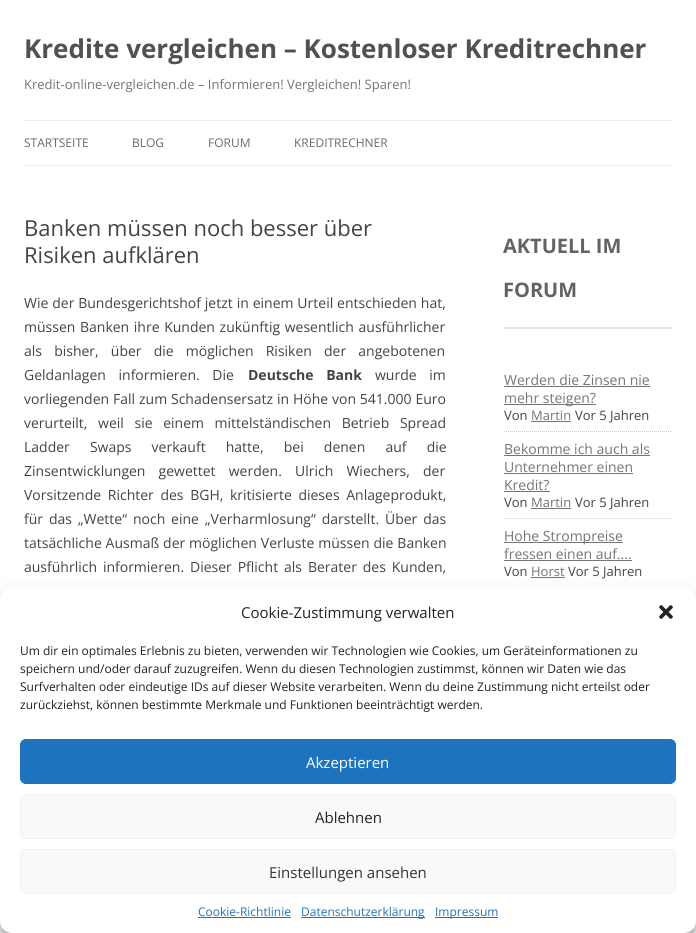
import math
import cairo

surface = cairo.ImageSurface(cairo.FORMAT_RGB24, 696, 933)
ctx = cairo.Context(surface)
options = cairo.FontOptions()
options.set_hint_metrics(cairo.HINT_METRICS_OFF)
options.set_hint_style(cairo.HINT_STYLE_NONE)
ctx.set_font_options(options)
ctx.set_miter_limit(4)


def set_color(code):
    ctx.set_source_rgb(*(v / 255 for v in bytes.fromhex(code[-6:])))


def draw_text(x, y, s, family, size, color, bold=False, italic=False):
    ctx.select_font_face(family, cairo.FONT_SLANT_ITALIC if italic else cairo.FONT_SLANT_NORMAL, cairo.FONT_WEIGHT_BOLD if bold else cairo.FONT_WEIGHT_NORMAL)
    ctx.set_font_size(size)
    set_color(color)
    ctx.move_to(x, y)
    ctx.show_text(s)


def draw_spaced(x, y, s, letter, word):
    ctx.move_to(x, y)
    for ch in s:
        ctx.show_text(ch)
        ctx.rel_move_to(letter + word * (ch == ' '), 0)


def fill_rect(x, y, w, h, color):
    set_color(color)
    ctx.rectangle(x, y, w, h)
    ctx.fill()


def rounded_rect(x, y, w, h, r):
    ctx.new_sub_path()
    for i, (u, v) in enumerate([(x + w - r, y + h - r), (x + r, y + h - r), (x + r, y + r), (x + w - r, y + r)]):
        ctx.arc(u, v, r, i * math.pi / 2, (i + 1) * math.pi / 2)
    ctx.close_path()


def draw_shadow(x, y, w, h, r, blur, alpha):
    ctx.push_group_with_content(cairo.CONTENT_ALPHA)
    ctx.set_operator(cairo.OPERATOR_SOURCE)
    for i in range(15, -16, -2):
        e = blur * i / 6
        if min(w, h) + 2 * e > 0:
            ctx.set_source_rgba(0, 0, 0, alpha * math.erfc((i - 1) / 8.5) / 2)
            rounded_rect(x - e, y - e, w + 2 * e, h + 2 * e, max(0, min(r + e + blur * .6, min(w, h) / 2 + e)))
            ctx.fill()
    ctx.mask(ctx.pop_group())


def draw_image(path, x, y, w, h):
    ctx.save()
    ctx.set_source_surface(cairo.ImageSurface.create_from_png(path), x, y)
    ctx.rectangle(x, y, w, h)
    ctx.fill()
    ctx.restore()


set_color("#ffffff")
ctx.paint()
draw_text(24, 58, "Kredite vergleichen – Kostenloser Kreditrechner", "Open Sans", 26, "#515151", bold=True)
draw_text(24, 89, "Kredit-online-vergleichen.de – Informieren! Vergleichen! Sparen!", "Open Sans", 13, "#757575")
fill_rect(24, 120, 648, 1, "#ededed")
fill_rect(24, 165, 648, 1, "#ededed")
draw_text(24, 147, "STARTSEITE", "Open Sans", 12, "#6a6a6a")
draw_text(132, 147, "BLOG", "Open Sans", 12, "#6a6a6a")
draw_text(208, 147, "FORUM", "Open Sans", 12, "#6a6a6a")
draw_text(294, 147, "KREDITRECHNER", "Open Sans", 12, "#6a6a6a")
draw_text(24, 236, "Banken müssen noch besser über", "Open Sans", 22, "#444444")
draw_text(24, 263, "Risiken aufklären", "Open Sans", 22, "#444444")
ctx.set_font_size(14)
draw_spaced(24, 308, "Wie der Bundesgerichtshof jetzt in einem Urteil entschieden hat,", 0, 0.25)
draw_spaced(24, 332, "müssen Banken ihre Kunden zukünftig wesentlich ausführlicher", 0, 1)
draw_spaced(24, 356, "als bisher, über die möglichen Risiken der angebotenen", 0, 8.5)
draw_spaced(24, 380, "Geldanlagen informieren. Die", 0, 9)
ctx.select_font_face("Open Sans", cairo.FONT_SLANT_NORMAL, cairo.FONT_WEIGHT_BOLD)
draw_spaced(248, 380, "Deutsche Bank", 0, 9)
ctx.select_font_face("Open Sans")
draw_spaced(375, 380, "wurde im", 0, 9)
draw_spaced(24, 404, "vorliegenden Fall zum Schadensersatz in Höhe von 541.000 Euro", 0, 0.25)
draw_spaced(24, 428, "verurteilt, weil sie einem mittelständischen Betrieb Spread", 0, 7)
draw_spaced(24, 452, "Ladder Swaps verkauft hatte, bei denen auf die", 0, 16.5)
draw_spaced(24, 476, "Zinsentwicklungen gewettet werden. Ulrich Wiechers, der", 0, 9.5)
draw_spaced(24, 500, "Vorsitzende Richter des BGH, kritisierte dieses Anlageprodukt,", 0, 3)
draw_spaced(24, 524, "für das „Wette“ noch eine „Verharmlosung“ darstellt. Über das", 0, 2.25)
draw_spaced(24, 548, "tatsächliche Ausmaß der möglichen Verluste müssen die Banken", 0, 0.25)
draw_spaced(24, 572, "ausführlich informieren. Dieser Pflicht als Berater des Kunden,", 0, 2.25)
fill_rect(503, 327, 169, 2, "#e6e6e6")
draw_text(503, 253, "AKTUELL IM", "Open Sans", 20, "#636363", bold=True)
draw_text(503, 297, "FORUM", "Open Sans", 20, "#636363", bold=True)
ctx.new_path()
ctx.move_to(504, 431.5)
ctx.line_to(671, 431.5)
set_color("#cccccc")
ctx.set_line_width(1)
ctx.set_dash([1, 1])
ctx.stroke()
draw_text(504, 385, "Werden die Zinsen nie", "Open Sans", 14, "#757575")
fill_rect(504, 386, 146, 1, "#757575")
fill_rect(504, 404, 92, 1, "#757575")
draw_text(504, 403, "mehr steigen?", "Open Sans", 14, "#757575")
draw_text(504, 420, "Von", "Open Sans", 13, "#444444")
draw_text(531, 420, "Martin", "Open Sans", 13, "#757575")
fill_rect(531, 421, 40, 1, "#757575")
draw_text(575, 420, "Vor 5 Jahren", "Open Sans", 13, "#444444")
ctx.new_path()
ctx.move_to(504, 518.5)
ctx.line_to(671, 518.5)
set_color("#cccccc")
ctx.stroke()
draw_text(504, 454, "Bekomme ich auch als", "Open Sans", 14, "#757575")
fill_rect(504, 455, 146, 1, "#757575")
draw_text(504, 472, "Unternehmer einen", "Open Sans", 14, "#757575")
fill_rect(504, 473, 129, 1, "#757575")
draw_text(504, 490, "Kredit?", "Open Sans", 14, "#757575")
fill_rect(504, 491, 46, 1, "#757575")
draw_text(504, 507, "Von", "Open Sans", 13, "#444444")
draw_text(531, 507, "Martin", "Open Sans", 13, "#757575")
fill_rect(531, 508, 40, 1, "#757575")
draw_text(575, 507, "Vor 5 Jahren", "Open Sans", 13, "#444444")
fill_rect(504, 542, 119, 1, "#757575")
draw_text(504, 541, "Hohe Strompreise", "Open Sans", 14, "#757575")
draw_text(504, 559, "fressen einen auf....", "Open Sans", 14, "#757575")
fill_rect(504, 560, 128, 1, "#757575")
draw_text(504, 576, "Von", "Open Sans", 13, "#444444")
draw_text(531, 576, "Horst", "Open Sans", 13, "#757575")
fill_rect(531, 577, 34, 1, "#757575")
draw_text(568, 576, "Vor 5 Jahren", "Open Sans", 13, "#444444")
set_color("#000000")
draw_shadow(0, 593, 696, 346, 12, 3, 0.23)
draw_shadow(0, 597, 696, 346, 12, 10, 0.19)
set_color("#ffffff")
rounded_rect(0, 587, 696, 346, 12)
ctx.fill()
draw_text(241, 618, "Cookie-Zustimmung verwalten", "Open Sans", 15, "#222222")
draw_image("assets/img1.png", 659, 605, 14, 14)
draw_text(20, 655, "Um dir ein optimales Erlebnis zu bieten, verwenden wir Technologien wie Cookies, um Geräteinformationen zu", "Open Sans", 12, "#222222")
draw_text(20, 673, "speichern und/oder darauf zuzugreifen. Wenn du diesen Technologien zustimmst, können wir Daten wie das", "Open Sans", 12, "#222222")
draw_text(20, 691, "Surfverhalten oder eindeutige IDs auf dieser Website verarbeiten. Wenn du deine Zustimmung nicht erteilst oder", "Open Sans", 12, "#222222")
draw_text(20, 709, "zurückziehst, können bestimmte Merkmale und Funktionen beeinträchtigt werden.", "Open Sans", 12, "#222222")
set_color("#1e73be")
rounded_rect(20.5, 739.5, 655, 44, 5.5)
ctx.fill_preserve()
ctx.set_dash([])
ctx.stroke()
draw_text(306, 768, "Akzeptieren", "Open Sans", 15, "#ffffff")
set_color("#f9f9f9")
rounded_rect(20.5, 794.5, 655, 44, 5.5)
ctx.fill_preserve()
set_color("#f2f2f2")
ctx.stroke()
draw_text(315, 823, "Ablehnen", "Open Sans", 15, "#222222")
set_color("#f9f9f9")
rounded_rect(20.5, 849.5, 655, 44, 5.5)
ctx.fill_preserve()
set_color("#f2f2f2")
ctx.stroke()
draw_text(269, 878, "Einstellungen ansehen", "Open Sans", 15, "#333333")
draw_text(198, 916, "Cookie-Richtlinie", "Open Sans", 12, "#1e73be")
fill_rect(198, 917, 93, 1, "#1e73be")
fill_rect(301, 917, 124, 1, "#1e73be")
draw_text(301, 916, "Datenschutzerklärung", "Open Sans", 12, "#1e73be")
fill_rect(435, 917, 63, 1, "#1e73be")
draw_text(435, 916, "Impressum", "Open Sans", 12, "#1e73be")
surface.write_to_png("output.png")
